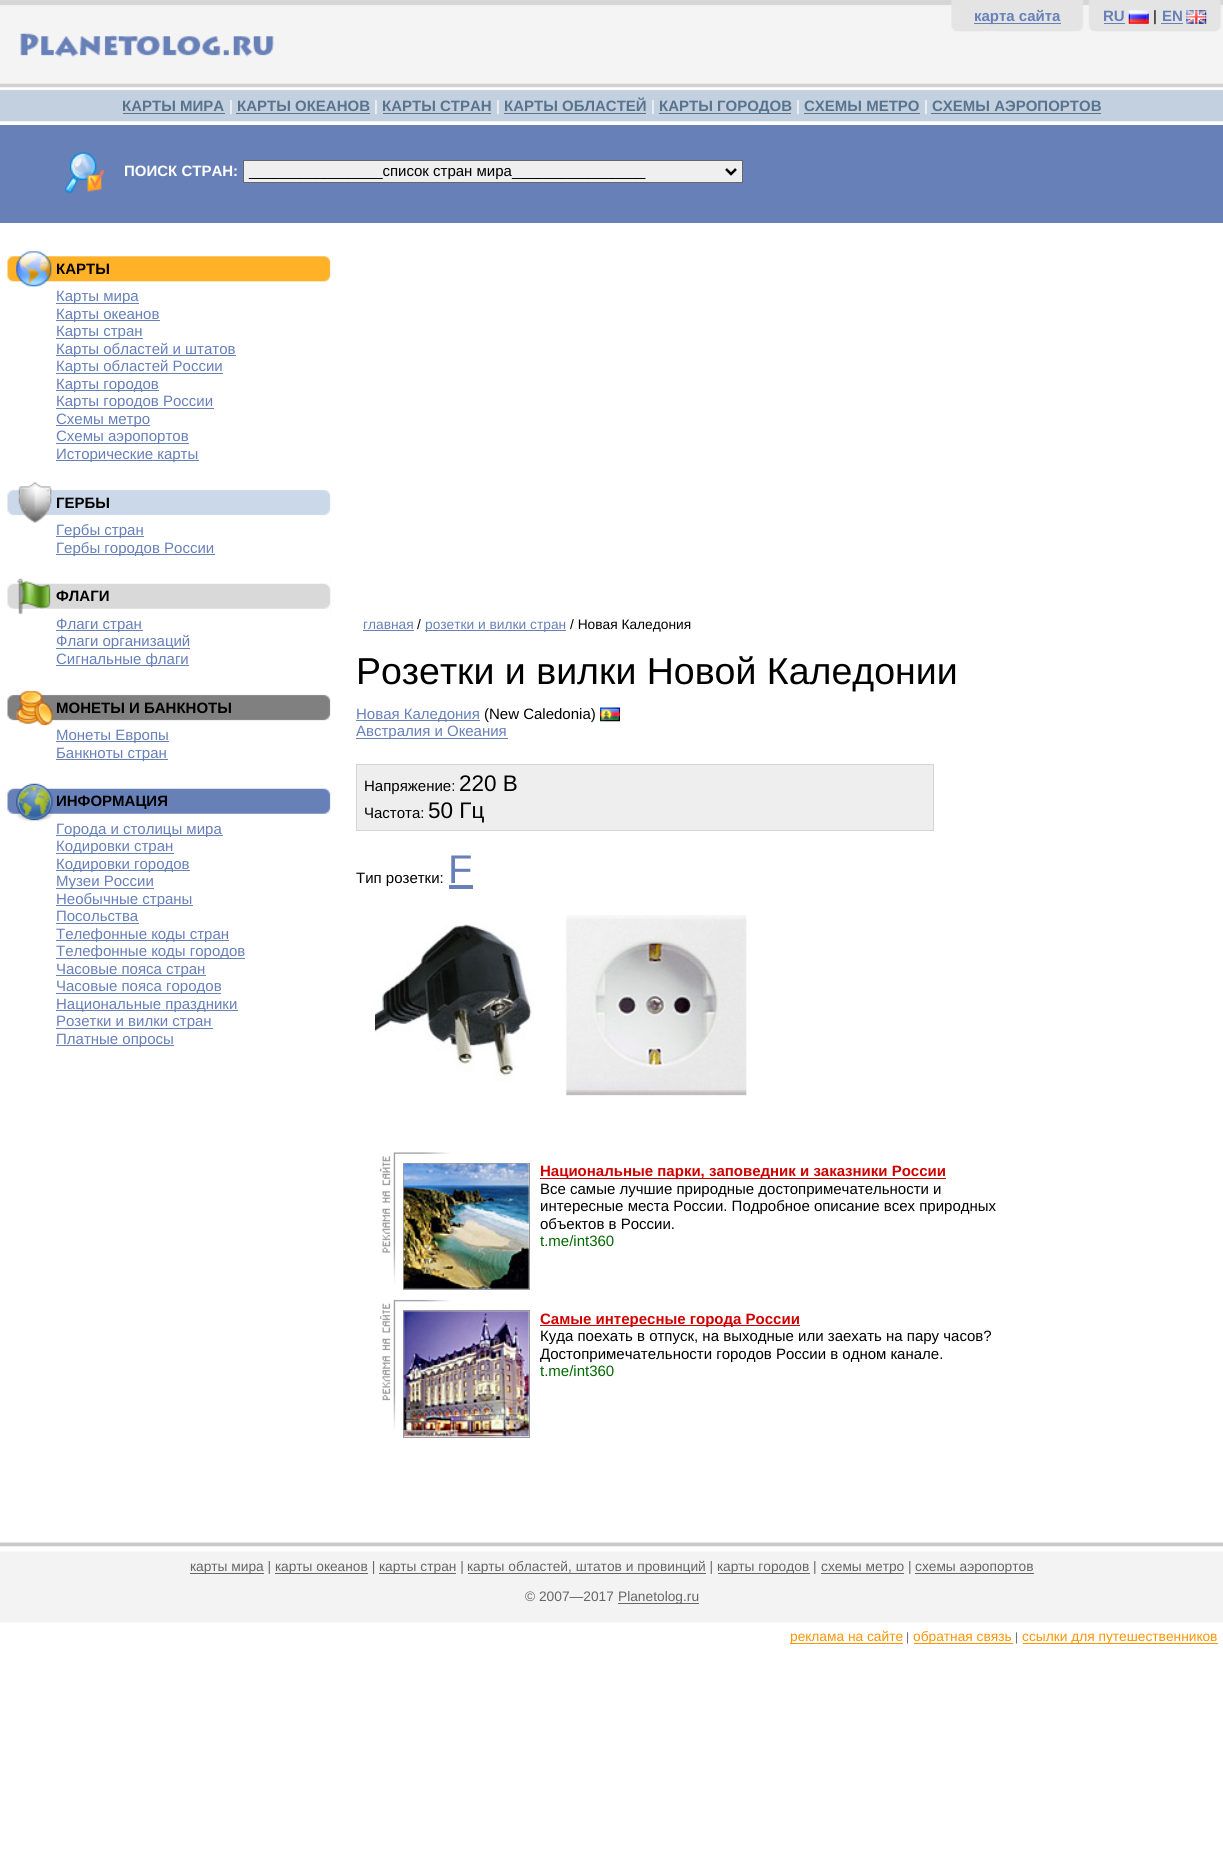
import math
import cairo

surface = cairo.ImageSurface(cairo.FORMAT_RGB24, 1223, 1874)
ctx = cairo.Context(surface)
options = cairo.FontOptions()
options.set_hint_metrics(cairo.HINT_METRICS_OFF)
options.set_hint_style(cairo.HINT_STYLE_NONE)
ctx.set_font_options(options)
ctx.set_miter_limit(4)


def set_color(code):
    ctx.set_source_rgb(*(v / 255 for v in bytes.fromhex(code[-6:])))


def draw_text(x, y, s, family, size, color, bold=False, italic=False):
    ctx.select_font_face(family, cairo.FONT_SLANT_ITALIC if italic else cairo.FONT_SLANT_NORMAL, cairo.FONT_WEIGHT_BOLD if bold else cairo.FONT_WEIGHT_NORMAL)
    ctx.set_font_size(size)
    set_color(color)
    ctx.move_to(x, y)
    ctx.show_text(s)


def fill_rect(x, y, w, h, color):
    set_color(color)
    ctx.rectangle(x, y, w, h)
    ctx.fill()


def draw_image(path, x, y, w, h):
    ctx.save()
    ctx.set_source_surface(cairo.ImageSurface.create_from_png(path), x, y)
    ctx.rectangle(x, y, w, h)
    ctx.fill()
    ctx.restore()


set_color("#ffffff")
ctx.paint()
draw_image("assets/img1.png", 0, 0, 1223, 88)
draw_image("assets/img2.png", 949, 0, 137, 32)
fill_rect(974, 23, 87, 1, "#6780b8")
draw_text(974, 21, "карта сайта", "Liberation Sans", 15, "#6780b8", bold=True)
draw_image("assets/img3.png", 1086, 0, 137, 32)
draw_text(1103, 21, "RU", "Liberation Sans", 15, "#6780b8", bold=True)
fill_rect(1104, 23, 21, 1, "#6780b8")
draw_image("assets/img4.png", 1128, 10, 21, 14)
draw_text(1153, 21, "|", "Liberation Sans", 15, "#000000")
draw_text(1162, 21, "EN", "Liberation Sans", 15, "#6780b8", bold=True)
fill_rect(1161, 23, 22, 1, "#6780b8")
draw_image("assets/img5.png", 1186, 10, 21, 14)
draw_image("assets/img6.png", 20, 33, 254, 24)
draw_image("assets/img7.png", 0, 87, 1223, 38)
draw_text(122, 111, "КАРТЫ МИРА", "Liberation Sans", 15, "#59738c", bold=True)
fill_rect(123, 113, 102, 1, "#59738c")
draw_text(229, 111, "|", "Liberation Sans", 15, "#ffffff")
draw_text(237, 111, "КАРТЫ ОКЕАНОВ", "Liberation Sans", 15, "#59738c", bold=True)
fill_rect(236, 113, 134, 1, "#59738c")
draw_text(374, 111, "|", "Liberation Sans", 15, "#ffffff")
draw_text(382, 111, "КАРТЫ СТРАН", "Liberation Sans", 15, "#59738c", bold=True)
fill_rect(383, 113, 108, 1, "#59738c")
draw_text(496, 111, "|", "Liberation Sans", 15, "#ffffff")
draw_text(504, 111, "КАРТЫ ОБЛАСТЕЙ", "Liberation Sans", 15, "#59738c", bold=True)
fill_rect(504, 113, 142, 1, "#59738c")
draw_text(651, 111, "|", "Liberation Sans", 15, "#ffffff")
fill_rect(659, 113, 132, 1, "#59738c")
draw_text(659, 111, "КАРТЫ ГОРОДОВ", "Liberation Sans", 15, "#59738c", bold=True)
draw_text(796, 111, "|", "Liberation Sans", 15, "#ffffff")
draw_text(804, 111, "СХЕМЫ МЕТРО", "Liberation Sans", 15, "#59738c", bold=True)
fill_rect(804, 113, 116, 1, "#59738c")
draw_text(924, 111, "|", "Liberation Sans", 15, "#ffffff")
draw_text(932, 111, "СХЕМЫ АЭРОПОРТОВ", "Liberation Sans", 15, "#59738c", bold=True)
fill_rect(931, 113, 170, 1, "#59738c")
fill_rect(0, 125, 1223, 98, "#6780b8")
draw_image("assets/img8.png", 64, 152, 40, 42)
draw_text(124, 176, "ПОИСК СТРАН:", "Liberation Sans", 15, "#ffffff", bold=True)
set_color("#efefef")
ctx.rectangle(243.5, 160.5, 499, 22)
ctx.fill_preserve()
set_color("#666666")
ctx.set_line_width(1)
ctx.stroke()
ctx.new_path()
ctx.move_to(726, 169)
ctx.line_to(731, 174)
ctx.line_to(736, 169)
set_color("#000000")
ctx.set_line_width(2.5)
ctx.stroke()
draw_text(249, 176, "________________список стран мира________________", "Liberation Sans", 15, "#000000")
draw_image("assets/img9.png", 7, 251, 324, 36)
draw_text(56, 274, "КАРТЫ", "Liberation Sans", 15, "#000000", bold=True)
fill_rect(56, 303, 83, 1, "#6780b8")
draw_text(56, 301, "Карты мира", "Liberation Sans", 15, "#6780b8")
fill_rect(56, 320, 104, 1, "#6780b8")
draw_text(56, 319, "Карты океанов", "Liberation Sans", 15, "#6780b8")
fill_rect(56, 338, 87, 1, "#6780b8")
draw_text(56, 336, "Карты стран", "Liberation Sans", 15, "#6780b8")
fill_rect(56, 355, 180, 1, "#6780b8")
draw_text(56, 354, "Карты областей и штатов", "Liberation Sans", 15, "#6780b8")
fill_rect(56, 373, 167, 1, "#6780b8")
draw_text(56, 371, "Карты областей России", "Liberation Sans", 15, "#6780b8")
fill_rect(56, 390, 103, 1, "#6780b8")
draw_text(56, 389, "Карты городов", "Liberation Sans", 15, "#6780b8")
fill_rect(56, 408, 158, 1, "#6780b8")
draw_text(56, 406, "Карты городов России", "Liberation Sans", 15, "#6780b8")
fill_rect(56, 425, 94, 1, "#6780b8")
draw_text(56, 424, "Схемы метро", "Liberation Sans", 15, "#6780b8")
fill_rect(56, 443, 133, 1, "#6780b8")
draw_text(56, 441, "Схемы аэропортов", "Liberation Sans", 15, "#6780b8")
fill_rect(56, 460, 143, 1, "#6780b8")
draw_text(56, 459, "Исторические карты", "Liberation Sans", 15, "#6780b8")
draw_image("assets/img10.png", 7, 482, 324, 41)
draw_text(56, 508, "ГЕРБЫ", "Liberation Sans", 15, "#000000", bold=True)
fill_rect(56, 536, 88, 1, "#6780b8")
draw_text(56, 535, "Гербы стран", "Liberation Sans", 15, "#6780b8")
fill_rect(56, 554, 159, 1, "#6780b8")
draw_text(56, 553, "Гербы городов России", "Liberation Sans", 15, "#6780b8")
draw_image("assets/img11.png", 7, 578, 324, 36)
draw_text(56, 601, "ФЛАГИ", "Liberation Sans", 15, "#000000", bold=True)
fill_rect(56, 630, 87, 1, "#6780b8")
draw_text(56, 629, "Флаги стран", "Liberation Sans", 15, "#6780b8")
fill_rect(56, 648, 134, 1, "#6780b8")
draw_text(56, 646, "Флаги организаций", "Liberation Sans", 15, "#6780b8")
fill_rect(56, 665, 133, 1, "#6780b8")
draw_text(56, 664, "Сигнальные флаги", "Liberation Sans", 15, "#6780b8")
draw_image("assets/img12.png", 7, 690, 324, 36)
draw_text(56, 713, "МОНЕТЫ И БАНКНОТЫ", "Liberation Sans", 15, "#000000", bold=True)
fill_rect(56, 741, 113, 1, "#6780b8")
draw_text(56, 740, "Монеты Европы", "Liberation Sans", 15, "#6780b8")
fill_rect(56, 759, 112, 1, "#6780b8")
draw_text(56, 758, "Банкноты стран", "Liberation Sans", 15, "#6780b8")
draw_image("assets/img13.png", 7, 783, 324, 39)
draw_text(56, 806, "ИНФОРМАЦИЯ", "Liberation Sans", 15, "#000000", bold=True)
fill_rect(56, 835, 167, 1, "#6780b8")
draw_text(56, 834, "Города и столицы мира", "Liberation Sans", 15, "#6780b8")
fill_rect(56, 853, 118, 1, "#6780b8")
draw_text(56, 851, "Кодировки стран", "Liberation Sans", 15, "#6780b8")
fill_rect(56, 870, 134, 1, "#6780b8")
draw_text(56, 869, "Кодировки городов", "Liberation Sans", 15, "#6780b8")
fill_rect(56, 888, 98, 1, "#6780b8")
draw_text(56, 886, "Музеи России", "Liberation Sans", 15, "#6780b8")
fill_rect(56, 905, 137, 1, "#6780b8")
draw_text(56, 904, "Необычные страны", "Liberation Sans", 15, "#6780b8")
draw_text(56, 921, "Посольства", "Liberation Sans", 15, "#6780b8")
fill_rect(56, 923, 83, 1, "#6780b8")
fill_rect(56, 940, 173, 1, "#6780b8")
draw_text(56, 939, "Телефонные коды стран", "Liberation Sans", 15, "#6780b8")
fill_rect(56, 958, 189, 1, "#6780b8")
draw_text(56, 956, "Телефонные коды городов", "Liberation Sans", 15, "#6780b8")
fill_rect(56, 975, 150, 1, "#6780b8")
draw_text(56, 974, "Часовые пояса стран", "Liberation Sans", 15, "#6780b8")
fill_rect(56, 993, 165, 1, "#6780b8")
draw_text(56, 991, "Часовые пояса городов", "Liberation Sans", 15, "#6780b8")
fill_rect(56, 1010, 182, 1, "#6780b8")
draw_text(56, 1009, "Национальные праздники", "Liberation Sans", 15, "#6780b8")
fill_rect(56, 1028, 157, 1, "#6780b8")
draw_text(56, 1026, "Розетки и вилки стран", "Liberation Sans", 15, "#6780b8")
fill_rect(56, 1045, 118, 1, "#6780b8")
draw_text(56, 1044, "Платные опросы", "Liberation Sans", 15, "#6780b8")
draw_text(363, 629, "главная", "Liberation Sans", 13.75, "#6780b8")
fill_rect(363, 630, 51, 1, "#6780b8")
draw_text(417, 629, "/", "Liberation Sans", 13.75, "#000000")
fill_rect(425, 630, 141, 1, "#6780b8")
draw_text(425, 629, "розетки и вилки стран", "Liberation Sans", 13.75, "#6780b8")
draw_text(570, 629, "/ Новая Каледония", "Liberation Sans", 13.75, "#000000")
draw_text(356, 684, "Розетки и вилки Новой Каледонии", "Liberation Sans", 37.5, "#000000")
fill_rect(356, 720, 124, 1, "#6780b8")
draw_text(356, 719, "Новая Каледония", "Liberation Sans", 15, "#6780b8")
draw_text(484, 719, "(New Caledonia)", "Liberation Sans", 15, "#000000")
draw_image("assets/img14.png", 600, 707, 20, 15)
fill_rect(356, 738, 152, 1, "#6780b8")
draw_text(356, 736, "Австралия и Океания", "Liberation Sans", 15, "#6780b8")
set_color("#eeeeee")
ctx.rectangle(356.5, 764.5, 577, 66)
ctx.fill_preserve()
set_color("#d4d4d4")
ctx.set_line_width(1)
ctx.stroke()
draw_text(364, 791, "Напряжение:", "Liberation Sans", 15, "#000000")
draw_text(459, 791, "220 В", "Liberation Sans", 22.5, "#000000")
draw_text(364, 818, "Частота:", "Liberation Sans", 15, "#000000")
draw_text(428, 818, "50 Гц", "Liberation Sans", 22.5, "#000000")
draw_text(356, 883, "Тип розетки:", "Liberation Sans", 15, "#000000")
draw_text(448, 883, "F", "Liberation Sans", 40, "#6780b8")
fill_rect(449, 885, 24, 4, "#6780b8")
draw_image("assets/img15.png", 375, 915, 372, 181)
draw_image("assets/img16.png", 379, 1152, 72, 132)
ctx.rectangle(403.5, 1163.5, 126, 126)
set_color("#999999")
ctx.stroke()
draw_image("assets/img17.png", 403, 1163, 126, 126)
fill_rect(540, 1178, 406, 1, "#cf0101")
draw_text(540, 1176, "Национальные парки, заповедник и заказники России", "Liberation Sans", 15, "#cf0101", bold=True)
draw_text(540, 1194, "Все самые лучшие природные достопримечательности и", "Liberation Sans", 15, "#000000")
draw_text(540, 1211, "интересные места России. Подробное описание всех природных", "Liberation Sans", 15, "#000000")
draw_text(540, 1229, "объектов в России.", "Liberation Sans", 15, "#000000")
draw_text(540, 1246, "t.me/int360", "Liberation Sans", 15, "#006600")
draw_image("assets/img18.png", 379, 1299, 72, 132)
ctx.rectangle(403.5, 1310.5, 126, 127)
set_color("#999999")
ctx.stroke()
draw_image("assets/img19.png", 403, 1311, 126, 126)
fill_rect(540, 1325, 260, 1, "#cf0101")
draw_text(540, 1324, "Самые интересные города России", "Liberation Sans", 15, "#cf0101", bold=True)
draw_text(540, 1341, "Куда поехать в отпуск, на выходные или заехать на пару часов?", "Liberation Sans", 15, "#000000")
draw_text(540, 1359, "Достопримечательности городов России в одном канале.", "Liberation Sans", 15, "#000000")
draw_text(540, 1376, "t.me/int360", "Liberation Sans", 15, "#006600")
draw_image("assets/img20.png", 0, 1542, 1223, 81)
fill_rect(190, 1573, 74, 1, "#666666")
draw_text(190, 1571, "карты мира |", "Liberation Sans", 13.75, "#666666")
fill_rect(275, 1573, 93, 1, "#666666")
draw_text(275, 1571, "карты океанов |", "Liberation Sans", 13.75, "#666666")
fill_rect(379, 1573, 77, 1, "#666666")
draw_text(379, 1571, "карты стран |", "Liberation Sans", 13.75, "#666666")
fill_rect(468, 1573, 238, 1, "#666666")
draw_text(467, 1571, "карты областей, штатов и провинций |", "Liberation Sans", 13.75, "#666666")
fill_rect(718, 1573, 92, 1, "#666666")
draw_text(717, 1571, "карты городов |", "Liberation Sans", 13.75, "#666666")
fill_rect(821, 1573, 83, 1, "#666666")
draw_text(821, 1571, "схемы метро |", "Liberation Sans", 13.75, "#666666")
fill_rect(915, 1573, 119, 1, "#666666")
draw_text(915, 1571, "схемы аэропортов", "Liberation Sans", 13.75, "#666666")
draw_text(525, 1601, "© 2007—2017", "Liberation Sans", 13.75, "#666666")
fill_rect(618, 1603, 81, 1, "#666666")
draw_text(618, 1601, "Planetolog.ru", "Liberation Sans", 13.75, "#666666")
fill_rect(790, 1643, 113, 1, "#fd9403")
draw_text(790, 1641, "реклама на сайте", "Liberation Sans", 13.75, "#fd9403")
draw_text(906, 1641, "|", "Liberation Sans", 12, "#666666")
fill_rect(914, 1643, 99, 1, "#fd9403")
draw_text(913, 1641, "обратная связь", "Liberation Sans", 13.75, "#fd9403")
draw_text(1015, 1641, "|", "Liberation Sans", 12, "#666666")
fill_rect(1023, 1643, 195, 1, "#fd9403")
draw_text(1022, 1641, "ссылки для путешественников", "Liberation Sans", 13.75, "#fd9403")
surface.write_to_png("output.png")
